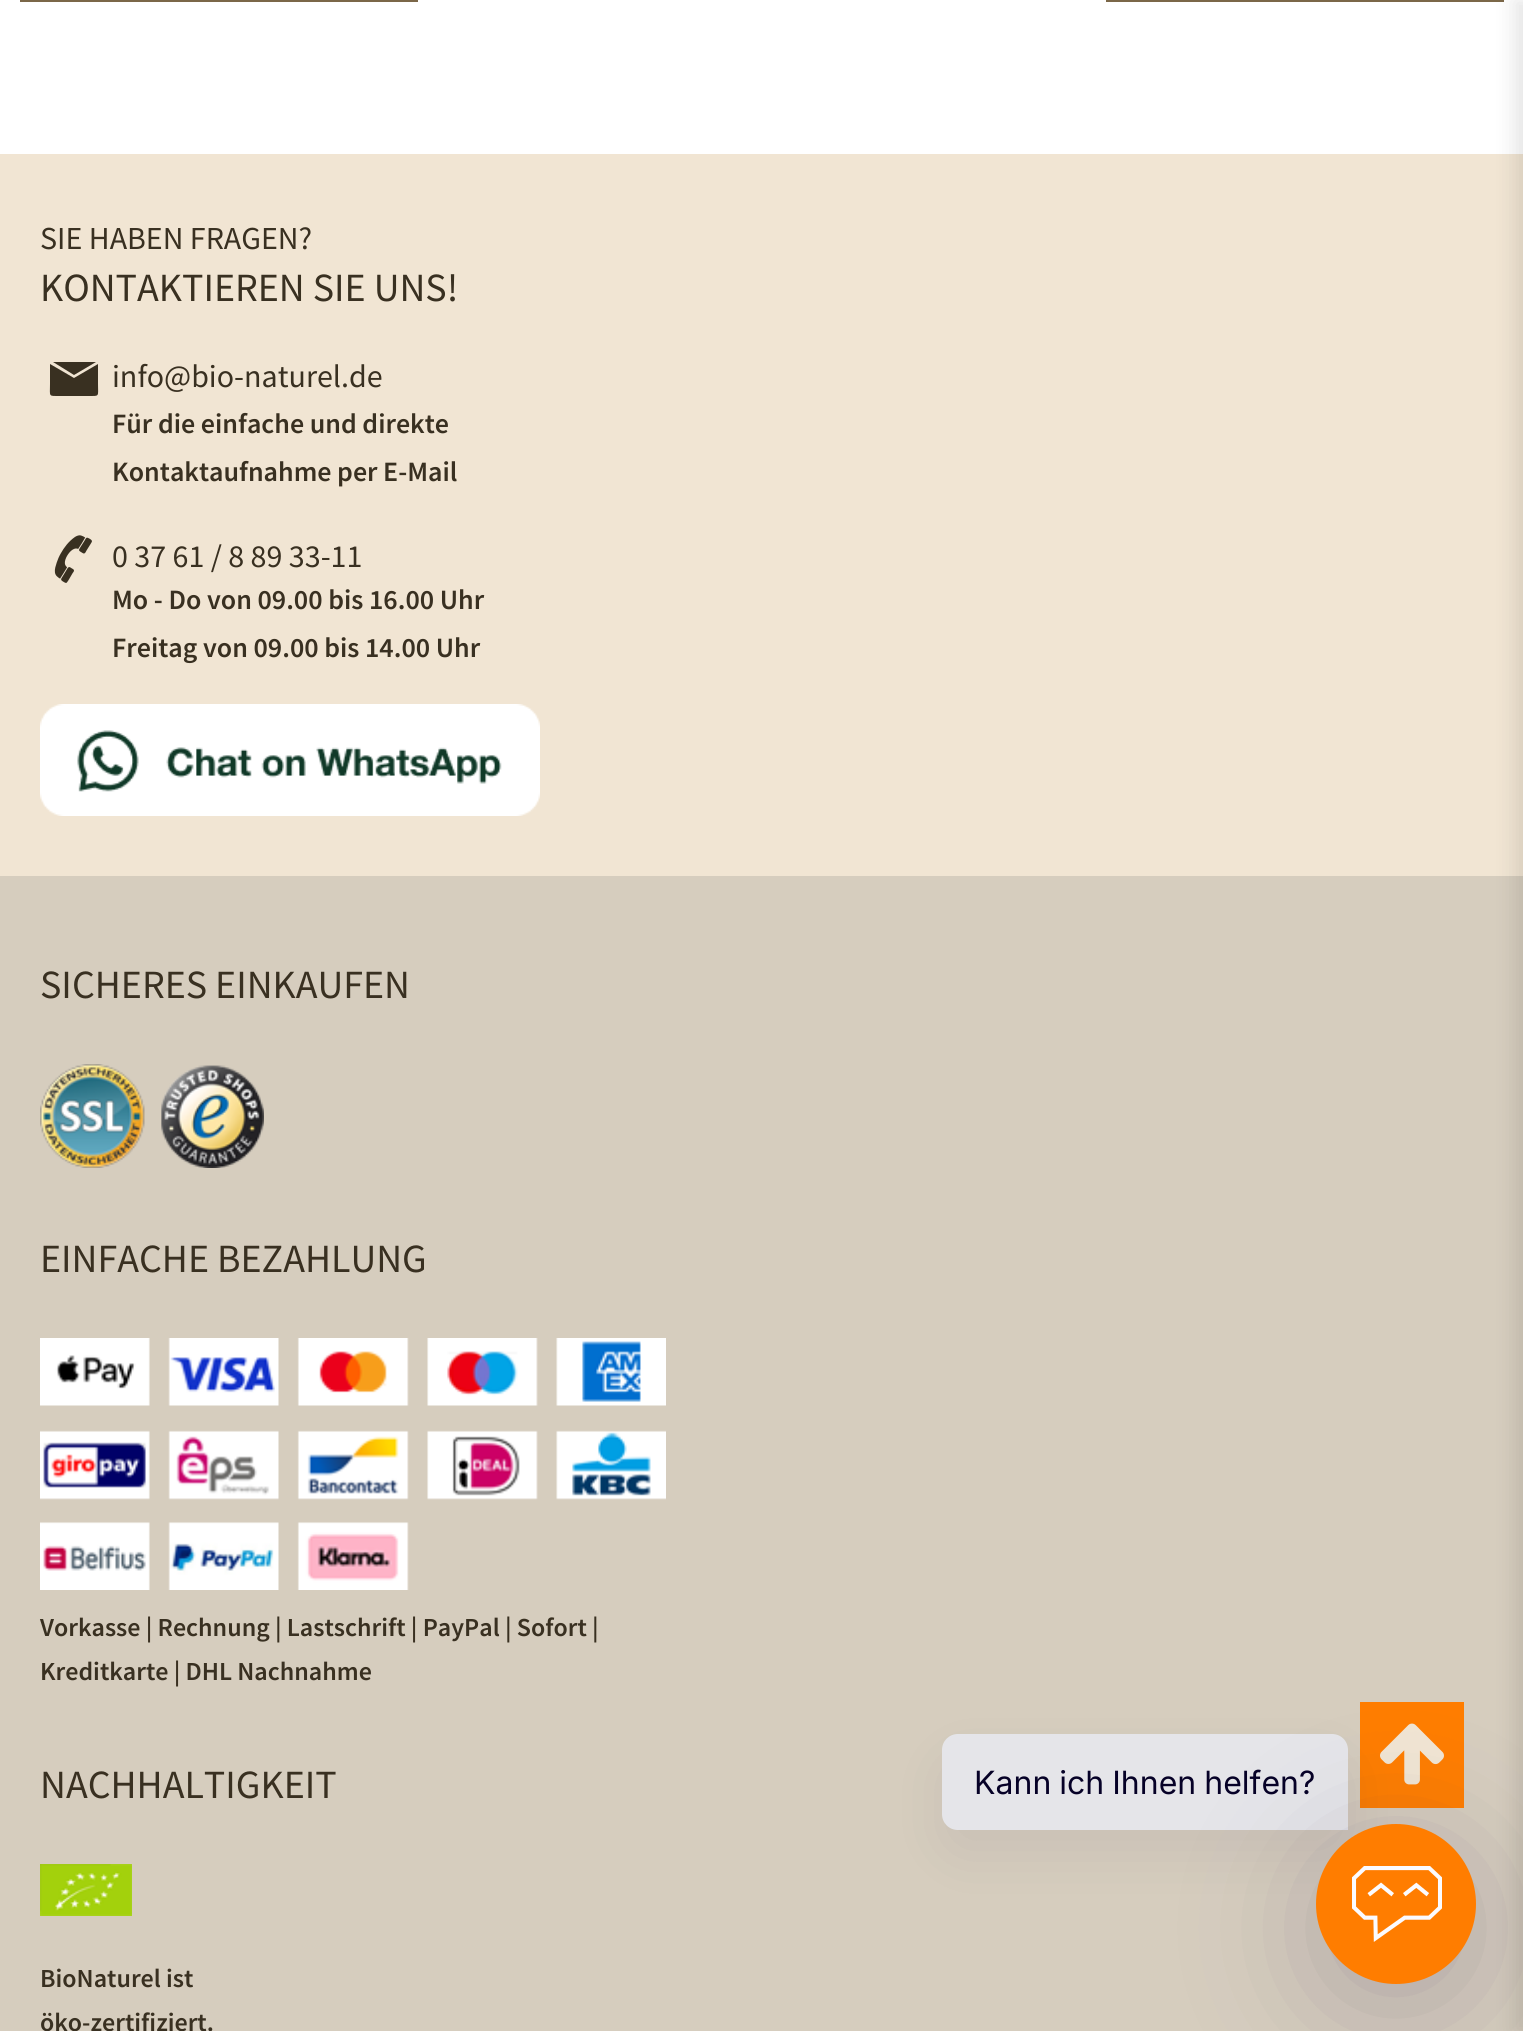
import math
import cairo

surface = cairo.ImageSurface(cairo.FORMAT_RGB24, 1523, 2031)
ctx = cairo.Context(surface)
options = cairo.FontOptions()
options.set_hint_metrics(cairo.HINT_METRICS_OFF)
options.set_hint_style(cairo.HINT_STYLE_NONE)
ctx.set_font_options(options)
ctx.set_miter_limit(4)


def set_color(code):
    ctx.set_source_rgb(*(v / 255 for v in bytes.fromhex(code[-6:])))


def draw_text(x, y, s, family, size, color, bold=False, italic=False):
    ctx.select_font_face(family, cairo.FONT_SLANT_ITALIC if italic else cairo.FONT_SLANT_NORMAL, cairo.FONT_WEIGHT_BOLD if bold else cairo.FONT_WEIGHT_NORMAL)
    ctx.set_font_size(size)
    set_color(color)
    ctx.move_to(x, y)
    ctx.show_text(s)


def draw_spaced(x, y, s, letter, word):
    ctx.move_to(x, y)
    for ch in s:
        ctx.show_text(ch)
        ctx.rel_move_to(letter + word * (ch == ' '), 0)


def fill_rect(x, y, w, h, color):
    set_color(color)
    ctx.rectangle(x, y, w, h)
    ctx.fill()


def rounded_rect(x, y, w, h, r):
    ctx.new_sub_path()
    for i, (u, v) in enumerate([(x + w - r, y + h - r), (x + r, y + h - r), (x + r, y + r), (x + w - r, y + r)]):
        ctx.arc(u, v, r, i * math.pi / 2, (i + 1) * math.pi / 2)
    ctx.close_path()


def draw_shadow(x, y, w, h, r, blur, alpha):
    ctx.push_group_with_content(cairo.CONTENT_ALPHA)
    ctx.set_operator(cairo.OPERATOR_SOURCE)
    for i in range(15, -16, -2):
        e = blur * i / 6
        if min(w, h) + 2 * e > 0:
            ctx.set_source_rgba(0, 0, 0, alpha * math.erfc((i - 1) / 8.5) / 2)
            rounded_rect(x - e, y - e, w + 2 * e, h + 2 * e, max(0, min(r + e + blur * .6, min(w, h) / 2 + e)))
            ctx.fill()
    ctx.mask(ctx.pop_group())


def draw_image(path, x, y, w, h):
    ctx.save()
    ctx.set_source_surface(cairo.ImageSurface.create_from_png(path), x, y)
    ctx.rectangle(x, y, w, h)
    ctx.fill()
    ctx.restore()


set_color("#ffffff")
ctx.paint()
fill_rect(20, 0, 1484, 2, "#7b6748")
fill_rect(418, 0, 688, 2, "#ffffff")
fill_rect(0, 154, 1523, 722, "#f1e5d3")
draw_text(40, 249, "SIE HABEN FRAGEN?", "Source Sans Pro", 32, "#393021")
draw_text(40, 301, "KONTAKTIEREN SIE UNS!", "Source Sans Pro", 40, "#393021")
ctx.new_path()
ctx.move_to(74, 375)
ctx.line_to(96, 362)
ctx.line_to(53, 362)
ctx.close_path()
ctx.move_to(74, 378)
ctx.line_to(50, 364)
ctx.line_to(50, 384)
ctx.curve_to(50, 397, 48, 396, 60, 396)
ctx.line_to(88, 396)
ctx.curve_to(100, 396, 98, 397, 98, 384)
ctx.line_to(98, 364)
ctx.close_path()
ctx.fill()
draw_text(112, 387, "info@bio-naturel.de", "Source Sans Pro", 32, "#393021")
draw_text(112, 433, "Für die einfache und direkte", "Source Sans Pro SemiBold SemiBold", 28, "#393021")
draw_text(112, 481, "Kontaktaufnahme per E-Mail", "Source Sans Pro SemiBold SemiBold", 28, "#393021")
draw_image("assets/img1.png", 54, 535, 38, 48)
draw_text(112, 567, "0 37 61 / 8 89 33-11", "Source Sans Pro", 32, "#393021")
draw_text(112, 609, "Mo - Do von 09.00 bis 16.00 Uhr", "Source Sans Pro SemiBold SemiBold", 28, "#393021")
draw_text(112, 657, "Freitag von 09.00 bis 14.00 Uhr", "Source Sans Pro SemiBold SemiBold", 28, "#393021")
draw_image("assets/img2.png", 40, 704, 500, 112)
fill_rect(0, 876, 1523, 1155, "#d6cdbe")
draw_text(40, 998, "SICHERES EINKAUFEN", "Source Sans Pro", 40, "#393021")
draw_image("assets/img3.png", 40, 1064, 224, 104)
draw_text(40, 1272, "EINFACHE BEZAHLUNG", "Source Sans Pro", 40, "#393021")
draw_image("assets/img4.png", 40, 1338, 626, 252)
draw_text(40, 1636, "Vorkasse | Rechnung | Lastschrift | PayPal | Sofort |", "Source Sans Pro SemiBold SemiBold", 26, "#393021")
draw_text(40, 1680, "Kreditkarte | DHL Nachnahme", "Source Sans Pro SemiBold SemiBold", 26, "#393021")
draw_text(40, 1798, "NACHHALTIGKEIT", "Source Sans Pro", 40, "#393021")
draw_image("assets/img5.png", 40, 1864, 92, 52)
draw_text(40, 1987, "BioNaturel ist", "Source Sans Pro SemiBold SemiBold", 26, "#393021")
draw_text(40, 2031, "öko-zertifiziert.", "Source Sans Pro SemiBold SemiBold", 26, "#393021")
fill_rect(1360, 1702, 104, 106, "#ff7d00")
draw_image("assets/img7.png", 1380, 1723, 64, 62)
set_color("#060127")
draw_shadow(950, 1766, 390, 80, 8, 32, 0.08)
set_color("#e5e5e9")
ctx.new_path()
ctx.move_to(958, 1734)
ctx.line_to(1332, 1734)
ctx.curve_to(1341, 1734, 1348, 1741, 1348, 1750)
ctx.line_to(1348, 1830)
ctx.line_to(958, 1830)
ctx.curve_to(949, 1830, 942, 1823, 942, 1814)
ctx.line_to(942, 1750)
ctx.curve_to(942, 1741, 949, 1734, 958, 1734)
ctx.close_path()
ctx.fill()
set_color("#3e2f59")
draw_shadow(1316, 1848, 160, 160, 80, 64, 0.24)
set_color("#ff7d00")
ctx.arc(1396, 1904, 80, 0, 2 * math.pi)
ctx.fill()
draw_image("assets/img6.png", 1352, 1866, 90, 76)
ctx.select_font_face("Inter")
ctx.set_font_size(32)
set_color("#060127")
draw_spaced(974, 1794, "Kann ich Ihnen helfen?", 0, -1)
set_color("#000000")
draw_shadow(1514, 0, 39, 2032, 0, 10, 0.1)
surface.write_to_png("output.png")
